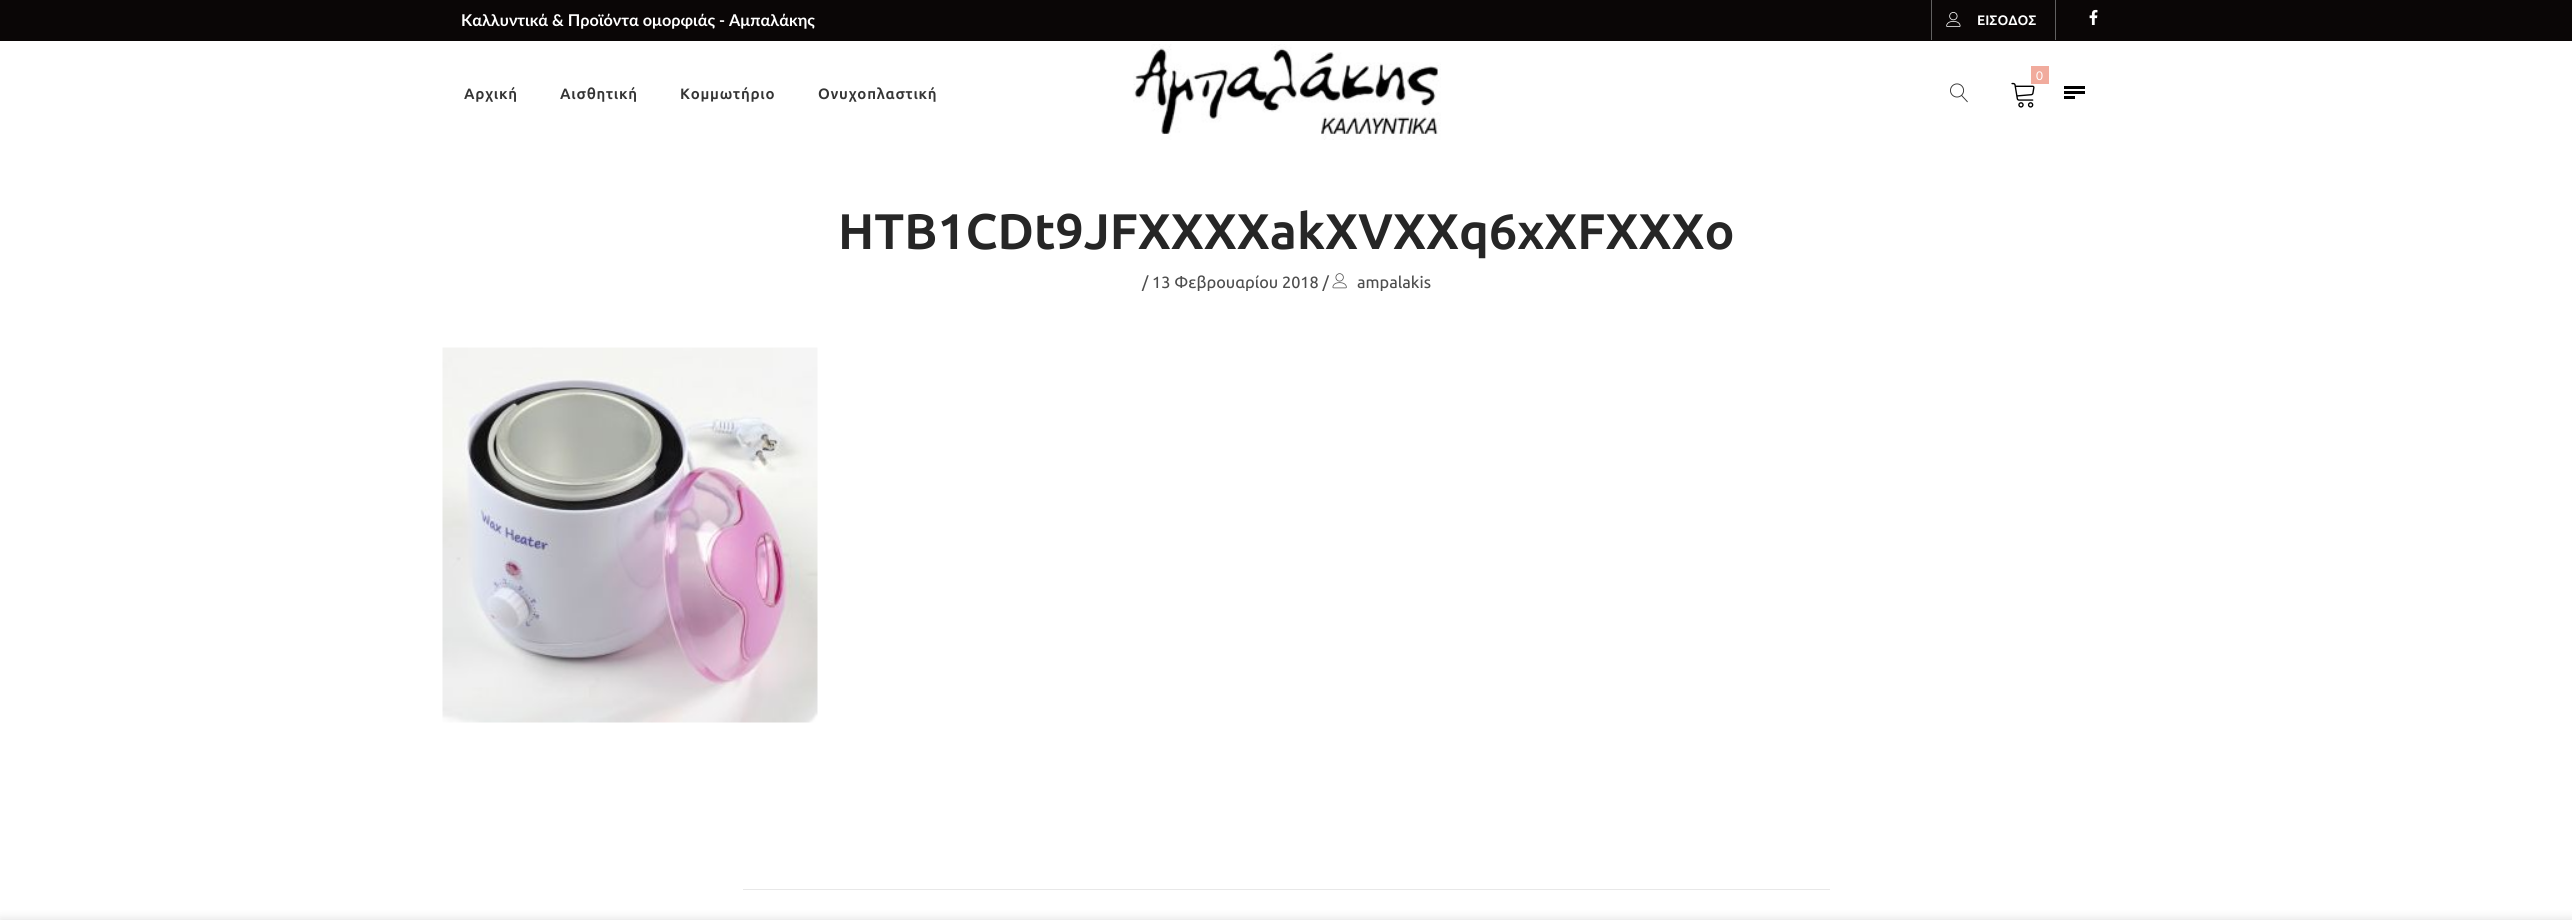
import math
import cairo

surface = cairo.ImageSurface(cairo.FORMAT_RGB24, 2572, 920)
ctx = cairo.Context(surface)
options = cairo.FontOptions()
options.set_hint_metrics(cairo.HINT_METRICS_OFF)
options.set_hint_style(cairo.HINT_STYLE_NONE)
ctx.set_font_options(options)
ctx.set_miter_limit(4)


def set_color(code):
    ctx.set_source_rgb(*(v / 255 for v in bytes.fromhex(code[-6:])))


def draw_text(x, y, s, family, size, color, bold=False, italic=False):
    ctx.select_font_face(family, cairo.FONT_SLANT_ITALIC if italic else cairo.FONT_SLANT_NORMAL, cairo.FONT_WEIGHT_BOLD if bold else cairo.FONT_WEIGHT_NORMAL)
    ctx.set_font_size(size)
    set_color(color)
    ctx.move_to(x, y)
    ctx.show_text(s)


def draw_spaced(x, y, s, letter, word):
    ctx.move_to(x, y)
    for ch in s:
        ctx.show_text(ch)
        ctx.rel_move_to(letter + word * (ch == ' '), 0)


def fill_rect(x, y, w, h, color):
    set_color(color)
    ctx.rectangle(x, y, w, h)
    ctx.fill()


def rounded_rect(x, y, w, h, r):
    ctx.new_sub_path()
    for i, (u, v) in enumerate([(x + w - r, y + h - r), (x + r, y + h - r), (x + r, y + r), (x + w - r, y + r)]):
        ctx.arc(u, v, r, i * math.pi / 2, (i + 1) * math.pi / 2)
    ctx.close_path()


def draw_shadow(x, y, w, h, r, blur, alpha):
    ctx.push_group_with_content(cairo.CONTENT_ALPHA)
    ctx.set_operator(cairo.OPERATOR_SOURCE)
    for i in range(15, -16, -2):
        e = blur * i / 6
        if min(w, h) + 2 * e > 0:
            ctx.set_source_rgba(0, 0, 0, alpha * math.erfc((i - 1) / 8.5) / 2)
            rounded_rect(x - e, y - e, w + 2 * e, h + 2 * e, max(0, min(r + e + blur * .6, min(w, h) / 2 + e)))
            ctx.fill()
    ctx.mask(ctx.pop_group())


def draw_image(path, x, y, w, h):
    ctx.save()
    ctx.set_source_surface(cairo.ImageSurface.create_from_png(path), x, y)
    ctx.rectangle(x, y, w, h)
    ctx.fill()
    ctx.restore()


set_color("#ffffff")
ctx.paint()
fill_rect(0, 0, 2572, 41, "#0a0606")
draw_text(461, 26, "Καλλυντικά & Προϊόντα ομορφιάς - Αμπαλάκης", "Lato", 16.25, "#ffffff", bold=True)
fill_rect(1931, 0, 1, 40, "#626060")
draw_image("assets/img1.png", 1946, 12, 15, 15)
draw_text(1977, 25, "ΕΙΣΟΔΟΣ", "Ubuntu", 13.75, "#ffffff", bold=True)
fill_rect(2055, 0, 1, 40, "#626060")
draw_image("assets/img2.png", 2089, 9, 9, 16)
draw_image("assets/img3.png", 1133, 44, 308, 96)
draw_image("assets/img4.png", 2011, 82, 24, 26)
fill_rect(2031, 66, 18, 18, "#f1ab9d")
draw_text(2036, 80, "0", "Lato", 12, "#ffffff")
ctx.select_font_face("Ubuntu", cairo.FONT_SLANT_NORMAL, cairo.FONT_WEIGHT_BOLD)
ctx.set_font_size(15)
set_color("#353535")
draw_spaced(464, 99, "Αρχική", 0.75, 0)
draw_spaced(560, 99, "Αισθητική", 0.75, 0)
draw_spaced(680, 99, "Κομμωτήριο", 0.75, 0)
draw_spaced(818, 99, "Ονυχοπλαστική", 0.75, 0)
draw_image("assets/img5.png", 1950, 83, 18, 20)
fill_rect(2064, 86, 21, 3, "#000000")
fill_rect(2064, 91, 21, 3, "#000000")
fill_rect(2064, 96, 11, 3, "#000000")
draw_text(838, 249, "HTB1CDt9JFXXXXakXVXXq6xXFXXXo", "Ubuntu", 50, "#262626", bold=True)
draw_text(1142, 288, "/ 13 Φεβρουαρίου 2018 /", "Ubuntu Medium", 16.25, "#4e4e4e")
draw_image("assets/img6.png", 1332, 273, 15, 16)
draw_text(1357, 288, "ampalakis", "Ubuntu Medium", 16.25, "#4e4e4e")
draw_image("assets/img7.png", 442, 347, 376, 376)
fill_rect(743, 889, 1087, 1, "#e8e8e8")
set_color("#000000")
draw_shadow(0, 920, 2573, 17, 0, 5.5, 0.14)
surface.write_to_png("output.png")
